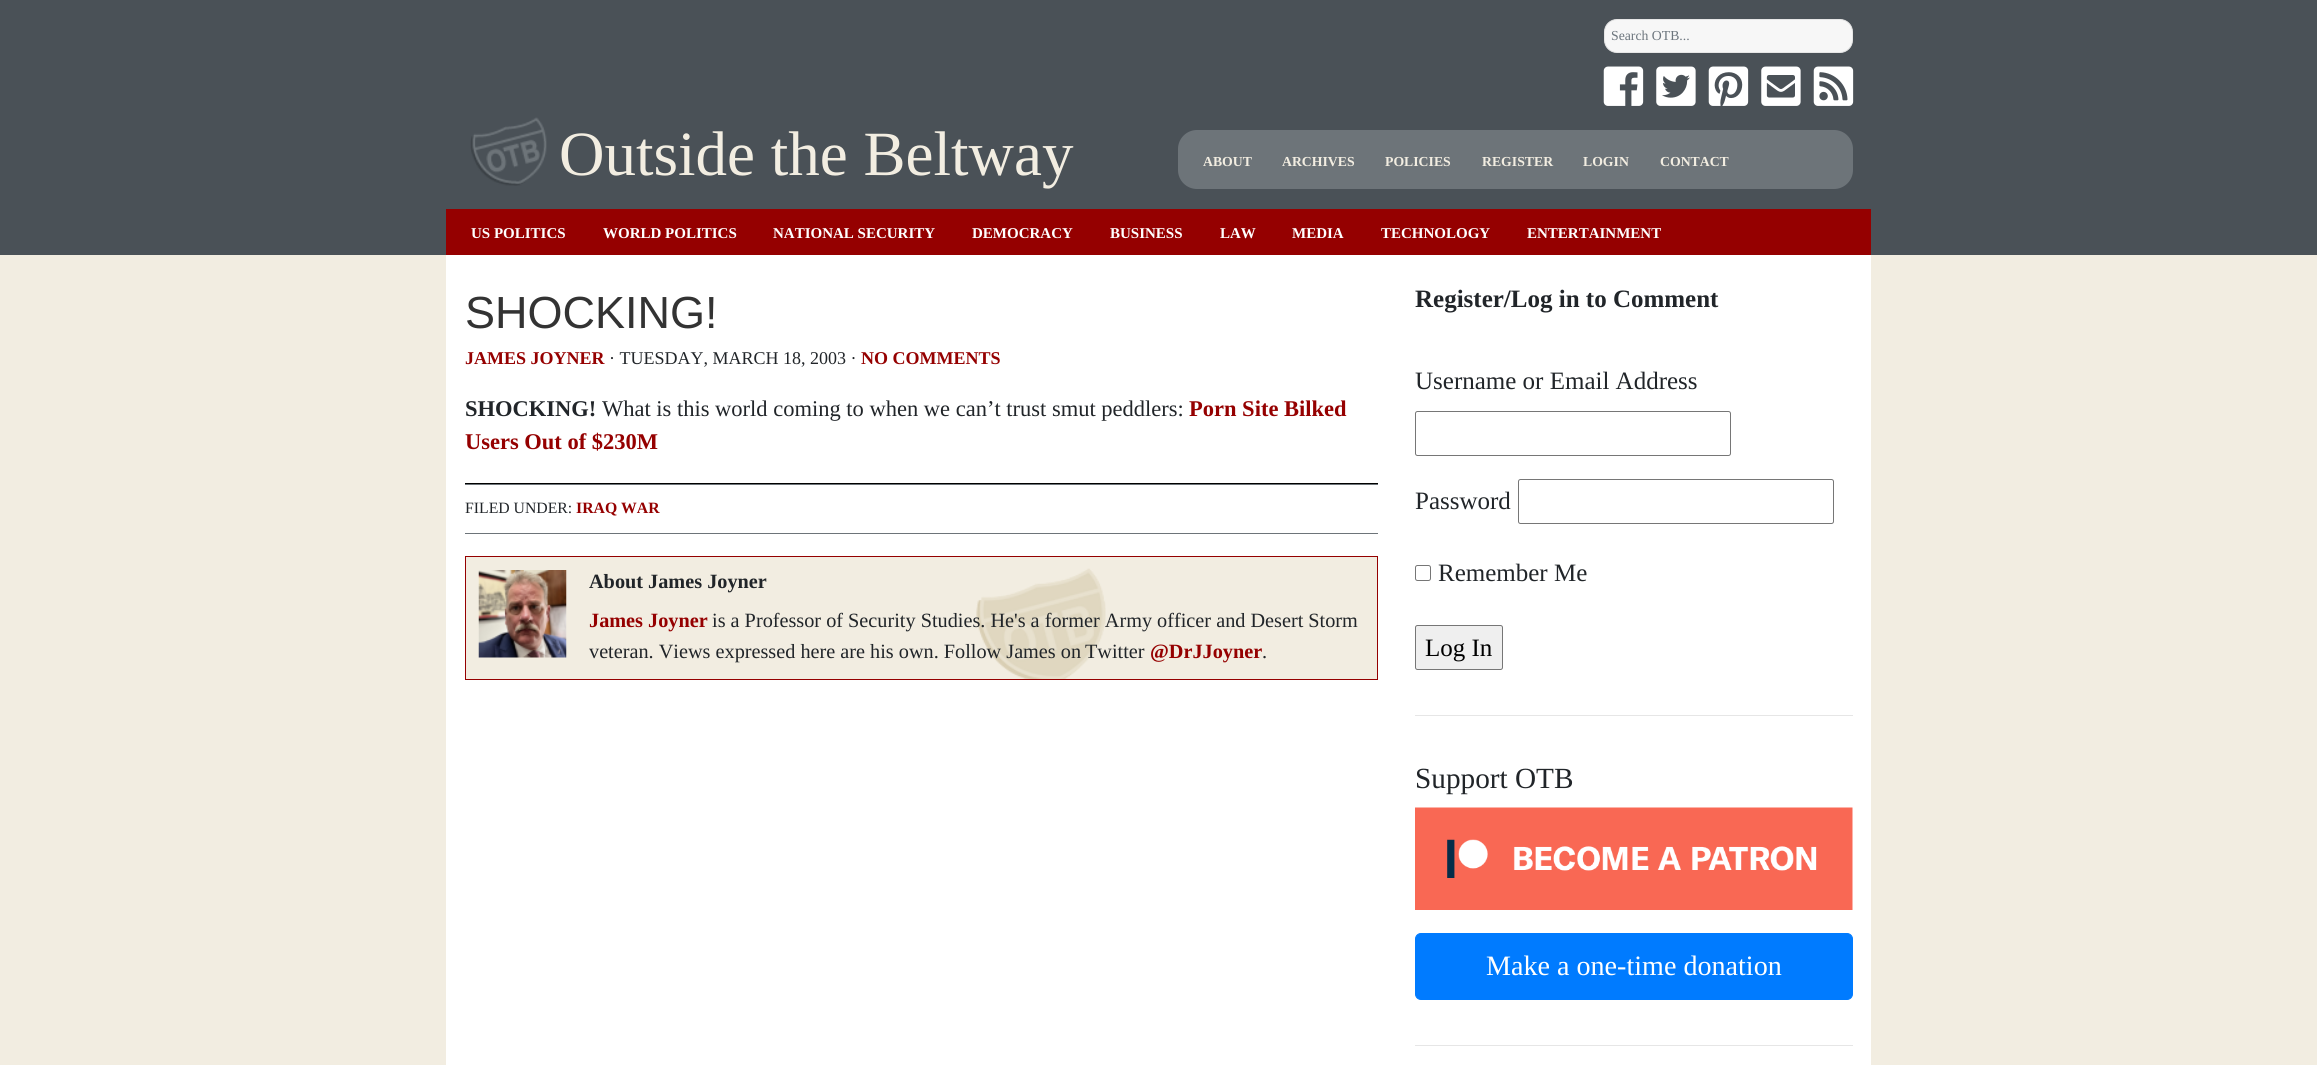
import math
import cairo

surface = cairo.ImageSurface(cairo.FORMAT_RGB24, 2317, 1065)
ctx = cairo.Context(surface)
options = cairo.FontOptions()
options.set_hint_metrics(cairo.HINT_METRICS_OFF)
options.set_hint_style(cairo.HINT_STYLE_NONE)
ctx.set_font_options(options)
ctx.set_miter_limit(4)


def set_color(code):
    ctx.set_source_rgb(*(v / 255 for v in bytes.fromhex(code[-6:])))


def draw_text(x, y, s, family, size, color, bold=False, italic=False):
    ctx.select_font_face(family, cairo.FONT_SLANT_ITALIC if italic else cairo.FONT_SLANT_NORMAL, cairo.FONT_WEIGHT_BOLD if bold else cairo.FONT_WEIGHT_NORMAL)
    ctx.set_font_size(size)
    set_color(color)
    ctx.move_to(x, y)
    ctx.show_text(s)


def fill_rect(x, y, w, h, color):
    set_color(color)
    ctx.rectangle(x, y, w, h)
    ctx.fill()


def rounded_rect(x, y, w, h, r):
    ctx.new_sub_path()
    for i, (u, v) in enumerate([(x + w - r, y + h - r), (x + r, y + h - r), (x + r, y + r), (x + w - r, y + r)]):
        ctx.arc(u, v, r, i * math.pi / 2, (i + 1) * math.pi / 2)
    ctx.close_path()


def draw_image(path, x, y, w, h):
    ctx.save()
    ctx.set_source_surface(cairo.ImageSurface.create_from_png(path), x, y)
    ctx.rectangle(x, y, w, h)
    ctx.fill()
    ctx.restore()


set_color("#f2ede1")
ctx.paint()
fill_rect(0, 0, 2317, 255, "#4a5157")
set_color("#f7f7f7")
rounded_rect(1604.5, 19.5, 248, 33, 12.5)
ctx.fill_preserve()
set_color("#e6e6e6")
ctx.set_line_width(1)
ctx.stroke()
draw_text(1611, 40, "Search OTB...", "Liberation Serif", 13.75, "#6c757d")
draw_image("assets/img1.png", 1603, 66, 41, 40)
draw_image("assets/img2.png", 1656, 66, 40, 40)
draw_image("assets/img3.png", 1708, 66, 41, 40)
draw_image("assets/img4.png", 1761, 66, 40, 40)
draw_image("assets/img5.png", 1813, 66, 41, 40)
draw_image("assets/img6.png", 470, 117, 77, 69)
draw_text(559, 175, "Outside the Beltway", "Liberation Serif", 63, "#f2ede1")
set_color("#6d7479")
rounded_rect(1178, 130, 675, 59, 19)
ctx.fill()
draw_text(1203, 166, "ABOUT", "Liberation Serif", 13.75, "#f2ede1", bold=True)
draw_text(1282, 166, "ARCHIVES", "Liberation Serif", 13.75, "#f2ede1", bold=True)
draw_text(1385, 166, "POLICIES", "Liberation Serif", 13.75, "#f2ede1", bold=True)
draw_text(1482, 166, "REGISTER", "Liberation Serif", 13.75, "#f2ede1", bold=True)
draw_text(1583, 166, "LOGIN", "Liberation Serif", 13.75, "#f2ede1", bold=True)
draw_text(1660, 166, "CONTACT", "Liberation Serif", 13.75, "#f2ede1", bold=True)
fill_rect(446, 209, 1425, 46, "#950000")
draw_text(471, 238, "US POLITICS", "Liberation Serif", 15, "#ffffff", bold=True)
draw_text(603, 238, "WORLD POLITICS", "Liberation Serif", 15, "#ffffff", bold=True)
draw_text(773, 238, "NATIONAL SECURITY", "Liberation Serif", 15, "#ffffff", bold=True)
draw_text(972, 238, "DEMOCRACY", "Liberation Serif", 15, "#ffffff", bold=True)
draw_text(1110, 238, "BUSINESS", "Liberation Serif", 15, "#ffffff", bold=True)
draw_text(1220, 238, "LAW", "Liberation Serif", 15, "#ffffff", bold=True)
draw_text(1292, 238, "MEDIA", "Liberation Serif", 15, "#ffffff", bold=True)
draw_text(1381, 238, "TECHNOLOGY", "Liberation Serif", 15, "#ffffff", bold=True)
draw_text(1527, 238, "ENTERTAINMENT", "Liberation Serif", 15, "#ffffff", bold=True)
fill_rect(446, 255, 1425, 810, "#ffffff")
fill_rect(465, 483, 913, 1, "#000000")
draw_text(465, 328, "SHOCKING!", "Liberation Sans", 45, "#333333")
draw_text(465, 364, "JAMES JOYNER", "Liberation Serif", 18, "#950000", bold=True)
draw_text(609, 364, "· TUESDAY, MARCH 18, 2003 ·", "Liberation Serif", 18, "#212529")
draw_text(861, 364, "NO COMMENTS", "Liberation Serif", 18, "#950000", bold=True)
draw_text(465, 416, "SHOCKING!", "Liberation Serif", 22.5, "#212529", bold=True)
draw_text(602, 416, "What is this world coming to when we can’t trust smut peddlers:", "Liberation Serif", 22.5, "#212529")
draw_text(1189, 416, "Porn Site Bilked", "Liberation Serif", 22.5, "#950000", bold=True)
draw_text(465, 449, "Users Out of $230M", "Liberation Serif", 22.5, "#950000", bold=True)
fill_rect(465, 484, 913, 1, "#6d7479")
fill_rect(465, 533, 913, 1, "#6d7479")
draw_text(465, 513, "FILED UNDER:", "Liberation Serif", 15.75, "#212529")
draw_text(576, 513, "IRAQ WAR", "Liberation Serif", 15.75, "#950000", bold=True)
fill_rect(466, 557, 911, 122, "#f2ede1")
draw_image("assets/img7.png", 976, 568, 130, 111)
ctx.rectangle(465.5, 556.5, 912, 123)
set_color("#950000")
ctx.stroke()
draw_image("assets/img8.png", 478, 570, 89, 88)
draw_text(589, 588, "About James Joyner", "Liberation Serif", 20.25, "#212529", bold=True)
draw_text(589, 627, "James Joyner", "Liberation Serif", 20.25, "#950000", bold=True)
draw_text(712, 627, "is a Professor of Security Studies. He's a former Army officer and Desert Storm", "Liberation Serif", 20.25, "#212529")
draw_text(589, 658, "veteran. Views expressed here are his own. Follow James on", "Liberation Serif", 20.25, "#212529")
draw_text(1085, 658, "Twitter", "Liberation Serif", 20.25, "#212529")
draw_text(1150, 658, "@DrJJoyner", "Liberation Serif", 20.25, "#950000", bold=True)
draw_text(1262, 658, ".", "Liberation Serif", 20.25, "#212529")
draw_text(1415, 307, "Register/Log in to Comment", "Liberation Serif", 25, "#212529", bold=True)
draw_text(1415, 389, "Username or Email Address", "Liberation Serif", 25, "#212529")
rounded_rect(1415.5, 411.5, 315, 44, 2)
set_color("#767676")
ctx.stroke()
draw_text(1415, 509, "Password", "Liberation Serif", 25, "#212529")
rounded_rect(1518.5, 479.5, 315, 44, 2)
set_color("#767676")
ctx.stroke()
rounded_rect(1415.5, 565.5, 15, 15, 2)
ctx.stroke()
draw_text(1438, 581, "Remember Me", "Liberation Serif", 25, "#212529")
set_color("#efefef")
rounded_rect(1415.5, 625.5, 87, 44, 2)
ctx.fill_preserve()
set_color("#767676")
ctx.stroke()
draw_text(1425, 656, "Log In", "Liberation Serif", 25, "#000000")
fill_rect(1415, 715, 438, 1, "#e6e6e6")
draw_text(1415, 788, "Support OTB", "Liberation Serif", 29.25, "#212529")
draw_image("assets/img9.png", 1415, 807, 438, 103)
set_color("#007bff")
rounded_rect(1415.5, 933.5, 437, 66, 5.5)
ctx.fill_preserve()
ctx.stroke()
draw_text(1486, 975, "Make a one-time donation", "Liberation Serif", 28.1, "#ffffff")
fill_rect(1415, 1045, 438, 1, "#e6e6e6")
surface.write_to_png("output.png")
